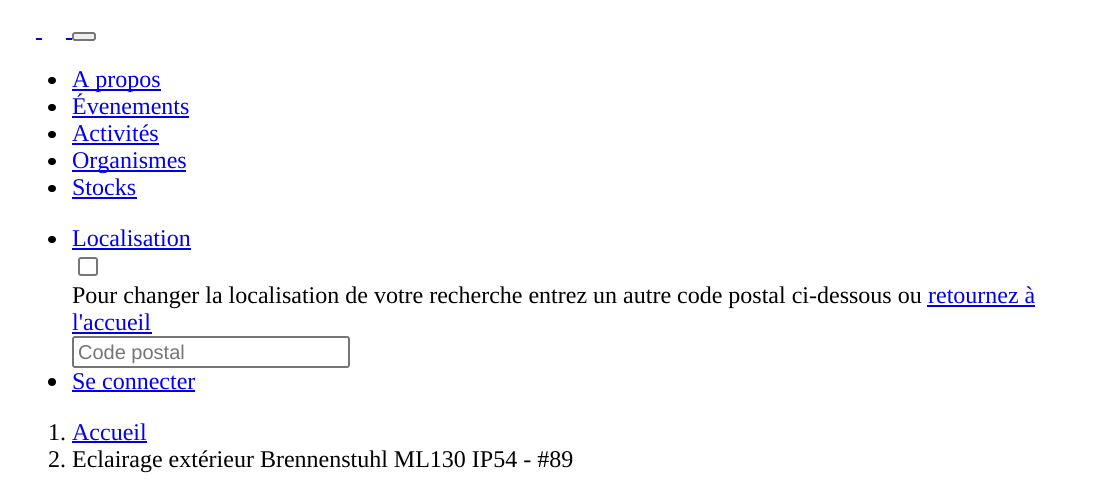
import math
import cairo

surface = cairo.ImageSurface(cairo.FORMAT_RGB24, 1116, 491)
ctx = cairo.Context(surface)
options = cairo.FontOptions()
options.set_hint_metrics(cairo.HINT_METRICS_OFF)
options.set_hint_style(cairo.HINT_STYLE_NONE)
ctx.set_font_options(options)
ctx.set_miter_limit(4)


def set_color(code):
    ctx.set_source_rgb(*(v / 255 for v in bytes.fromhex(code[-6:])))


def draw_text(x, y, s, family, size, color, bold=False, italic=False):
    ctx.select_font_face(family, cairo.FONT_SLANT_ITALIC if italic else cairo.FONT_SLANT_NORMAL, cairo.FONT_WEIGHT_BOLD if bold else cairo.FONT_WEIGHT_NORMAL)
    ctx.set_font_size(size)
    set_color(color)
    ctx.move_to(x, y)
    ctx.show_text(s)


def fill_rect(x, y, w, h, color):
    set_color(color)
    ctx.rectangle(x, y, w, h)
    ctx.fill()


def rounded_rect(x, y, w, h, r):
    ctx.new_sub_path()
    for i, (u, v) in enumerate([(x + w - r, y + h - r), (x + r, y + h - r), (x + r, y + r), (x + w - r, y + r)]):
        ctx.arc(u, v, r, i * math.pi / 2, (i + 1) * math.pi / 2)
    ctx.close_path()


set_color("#ffffff")
ctx.paint()
fill_rect(36, 38, 6, 2, "#0000ee")
fill_rect(66, 38, 6, 2, "#0000ee")
set_color("#efefef")
rounded_rect(73, 33, 22, 7, 2)
ctx.fill_preserve()
set_color("#767676")
ctx.stroke()
set_color("#000000")
rounded_rect(48, 77, 8, 7, 3.5)
ctx.fill()
fill_rect(72, 89, 89, 2, "#0000ee")
draw_text(72, 87, "A propos", "Liberation Serif", 24, "#0000ee")
set_color("#000000")
rounded_rect(48, 104, 8, 7, 3.5)
ctx.fill()
draw_text(72, 114, "Évenements", "Liberation Serif", 24, "#0000ee")
fill_rect(72, 116, 117, 2, "#0000ee")
set_color("#000000")
rounded_rect(48, 131, 8, 7, 3.5)
ctx.fill()
draw_text(72, 141, "Activités", "Liberation Serif", 24, "#0000ee")
fill_rect(72, 143, 87, 2, "#0000ee")
set_color("#000000")
rounded_rect(48, 158, 8, 7, 3.5)
ctx.fill()
fill_rect(72, 170, 114, 2, "#0000ee")
draw_text(72, 168, "Organismes", "Liberation Serif", 24, "#0000ee")
set_color("#000000")
rounded_rect(48, 185, 8, 7, 3.5)
ctx.fill()
draw_text(72, 195, "Stocks", "Liberation Serif", 24, "#0000ee")
fill_rect(72, 197, 65, 2, "#0000ee")
set_color("#000000")
rounded_rect(48, 236, 8, 7, 3.5)
ctx.fill()
draw_text(72, 246, "Localisation", "Liberation Serif", 24, "#0000ee")
fill_rect(72, 248, 119, 2, "#0000ee")
rounded_rect(79, 258, 18, 17, 2)
set_color("#767676")
ctx.stroke()
draw_text(72, 303, "Pour changer la localisation de votre recherche entrez un autre code postal ci-dessous ou", "Liberation Serif", 24, "#000000")
draw_text(928, 303, "retournez à", "Liberation Serif", 24, "#0000ee")
fill_rect(927, 305, 108, 2, "#0000ee")
draw_text(72, 330, "l'accueil", "Liberation Serif", 24, "#0000ee")
fill_rect(72, 332, 80, 2, "#0000ee")
rounded_rect(73, 337, 276, 30, 2)
set_color("#767676")
ctx.stroke()
draw_text(78, 359, "Code postal", "Liberation Sans", 20, "#757575")
set_color("#000000")
ctx.new_path()
ctx.arc(52, 382, 4, 0, 2 * math.pi)
ctx.fill()
draw_text(72, 389, "Se connecter", "Liberation Serif", 24, "#0000ee")
fill_rect(72, 390, 123, 2, "#0000ee")
draw_text(48, 440, "1.", "Liberation Serif", 24, "#000000")
draw_text(72, 440, "Accueil", "Liberation Serif", 24, "#0000ee")
fill_rect(72, 441, 75, 2, "#0000ee")
draw_text(48, 467, "2. Eclairage extérieur Brennenstuhl ML130 IP54 - #89", "Liberation Serif", 24, "#000000")
surface.write_to_png("output.png")
